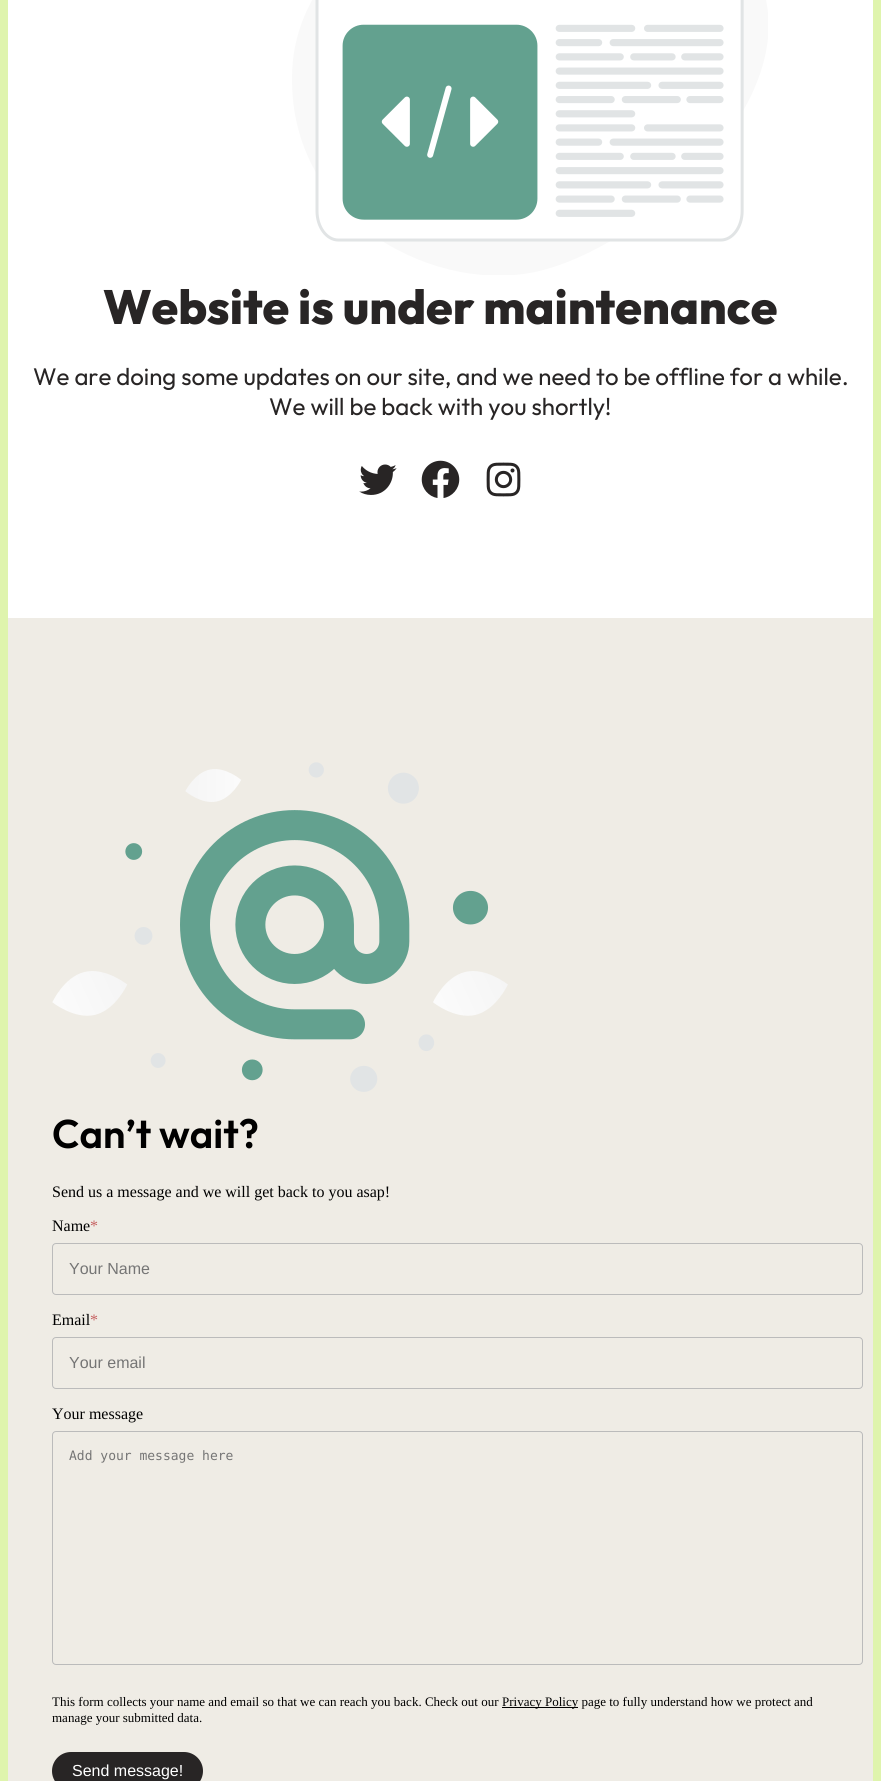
import math
import cairo

surface = cairo.ImageSurface(cairo.FORMAT_RGB24, 881, 1781)
ctx = cairo.Context(surface)
options = cairo.FontOptions()
options.set_hint_metrics(cairo.HINT_METRICS_OFF)
options.set_hint_style(cairo.HINT_STYLE_NONE)
ctx.set_font_options(options)
ctx.set_miter_limit(4)


def set_color(code):
    ctx.set_source_rgb(*(v / 255 for v in bytes.fromhex(code[-6:])))


def draw_text(x, y, s, family, size, color, bold=False, italic=False):
    ctx.select_font_face(family, cairo.FONT_SLANT_ITALIC if italic else cairo.FONT_SLANT_NORMAL, cairo.FONT_WEIGHT_BOLD if bold else cairo.FONT_WEIGHT_NORMAL)
    ctx.set_font_size(size)
    set_color(color)
    ctx.move_to(x, y)
    ctx.show_text(s)


def fill_rect(x, y, w, h, color):
    set_color(color)
    ctx.rectangle(x, y, w, h)
    ctx.fill()


def rounded_rect(x, y, w, h, r):
    ctx.new_sub_path()
    for i, (u, v) in enumerate([(x + w - r, y + h - r), (x + r, y + h - r), (x + r, y + r), (x + w - r, y + r)]):
        ctx.arc(u, v, r, i * math.pi / 2, (i + 1) * math.pi / 2)
    ctx.close_path()


def draw_image(path, x, y, w, h):
    ctx.save()
    ctx.set_source_surface(cairo.ImageSurface.create_from_png(path), x, y)
    ctx.rectangle(x, y, w, h)
    ctx.fill()
    ctx.restore()


set_color("#dff4ad")
ctx.paint()
fill_rect(8, 0, 865, 618, "#ffffff")
draw_image("assets/img1.png", 292, 0, 476, 275)
draw_text(103, 324, "Website is under maintenance", "Outfit ExtraBold", 48, "#282525")
draw_text(33, 385, "We are doing some updates on our site, and we need to be offline for a while.", "Outfit", 24, "#282525")
draw_text(269, 415, "We will be back with you shortly!", "Outfit", 24, "#282525")
draw_image("assets/img2.png", 359, 464, 38, 31)
draw_image("assets/img3.png", 421, 460, 39, 38)
draw_image("assets/img4.png", 486, 462, 35, 35)
fill_rect(8, 618, 865, 1163, "#efece5")
draw_image("assets/img5.png", 52, 762, 456, 330)
draw_text(52, 1148, "Can’t wait?", "Outfit SemiBold", 40, "#000000")
draw_text(52, 1197, "Send us a message and we will get back to you asap!", "Liberation Serif", 16, "#000000")
draw_text(52, 1231, "Name", "Liberation Serif", 16, "#000000")
draw_text(90, 1231, "*", "Liberation Serif", 16, "#c66262")
rounded_rect(52.5, 1243.5, 810, 51, 3.5)
set_color("#bbbbbb")
ctx.set_line_width(1)
ctx.stroke()
draw_text(69, 1274, "Your Name", "Liberation Sans", 16, "#757575")
draw_text(52, 1325, "Email", "Liberation Serif", 16, "#000000")
draw_text(90, 1325, "*", "Liberation Serif", 16, "#c66262")
rounded_rect(52.5, 1337.5, 810, 51, 3.5)
set_color("#bbbbbb")
ctx.stroke()
draw_text(69, 1368, "Your email", "Liberation Sans", 16, "#757575")
draw_text(52, 1419, "Your message", "Liberation Serif", 16, "#000000")
rounded_rect(52.5, 1431.5, 810, 233, 3.5)
set_color("#bbbbbb")
ctx.stroke()
draw_text(69, 1460, "Add your message here", "DejaVu Sans Mono", 13, "#757575")
draw_text(52, 1706, "This form collects your name and email so that we can reach you back. Check out our", "Liberation Serif", 13, "#000000")
fill_rect(502, 1707, 76, 1, "#000000")
draw_text(502, 1706, "Privacy Policy page to fully understand how we protect and", "Liberation Serif", 13, "#000000")
draw_text(52, 1722, "manage your submitted data.", "Liberation Serif", 13, "#000000")
set_color("#282525")
rounded_rect(52, 1752, 151, 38, 19)
ctx.fill()
draw_text(72, 1776, "Send message!", "Liberation Sans", 16, "#ffffff")
surface.write_to_png("output.png")
